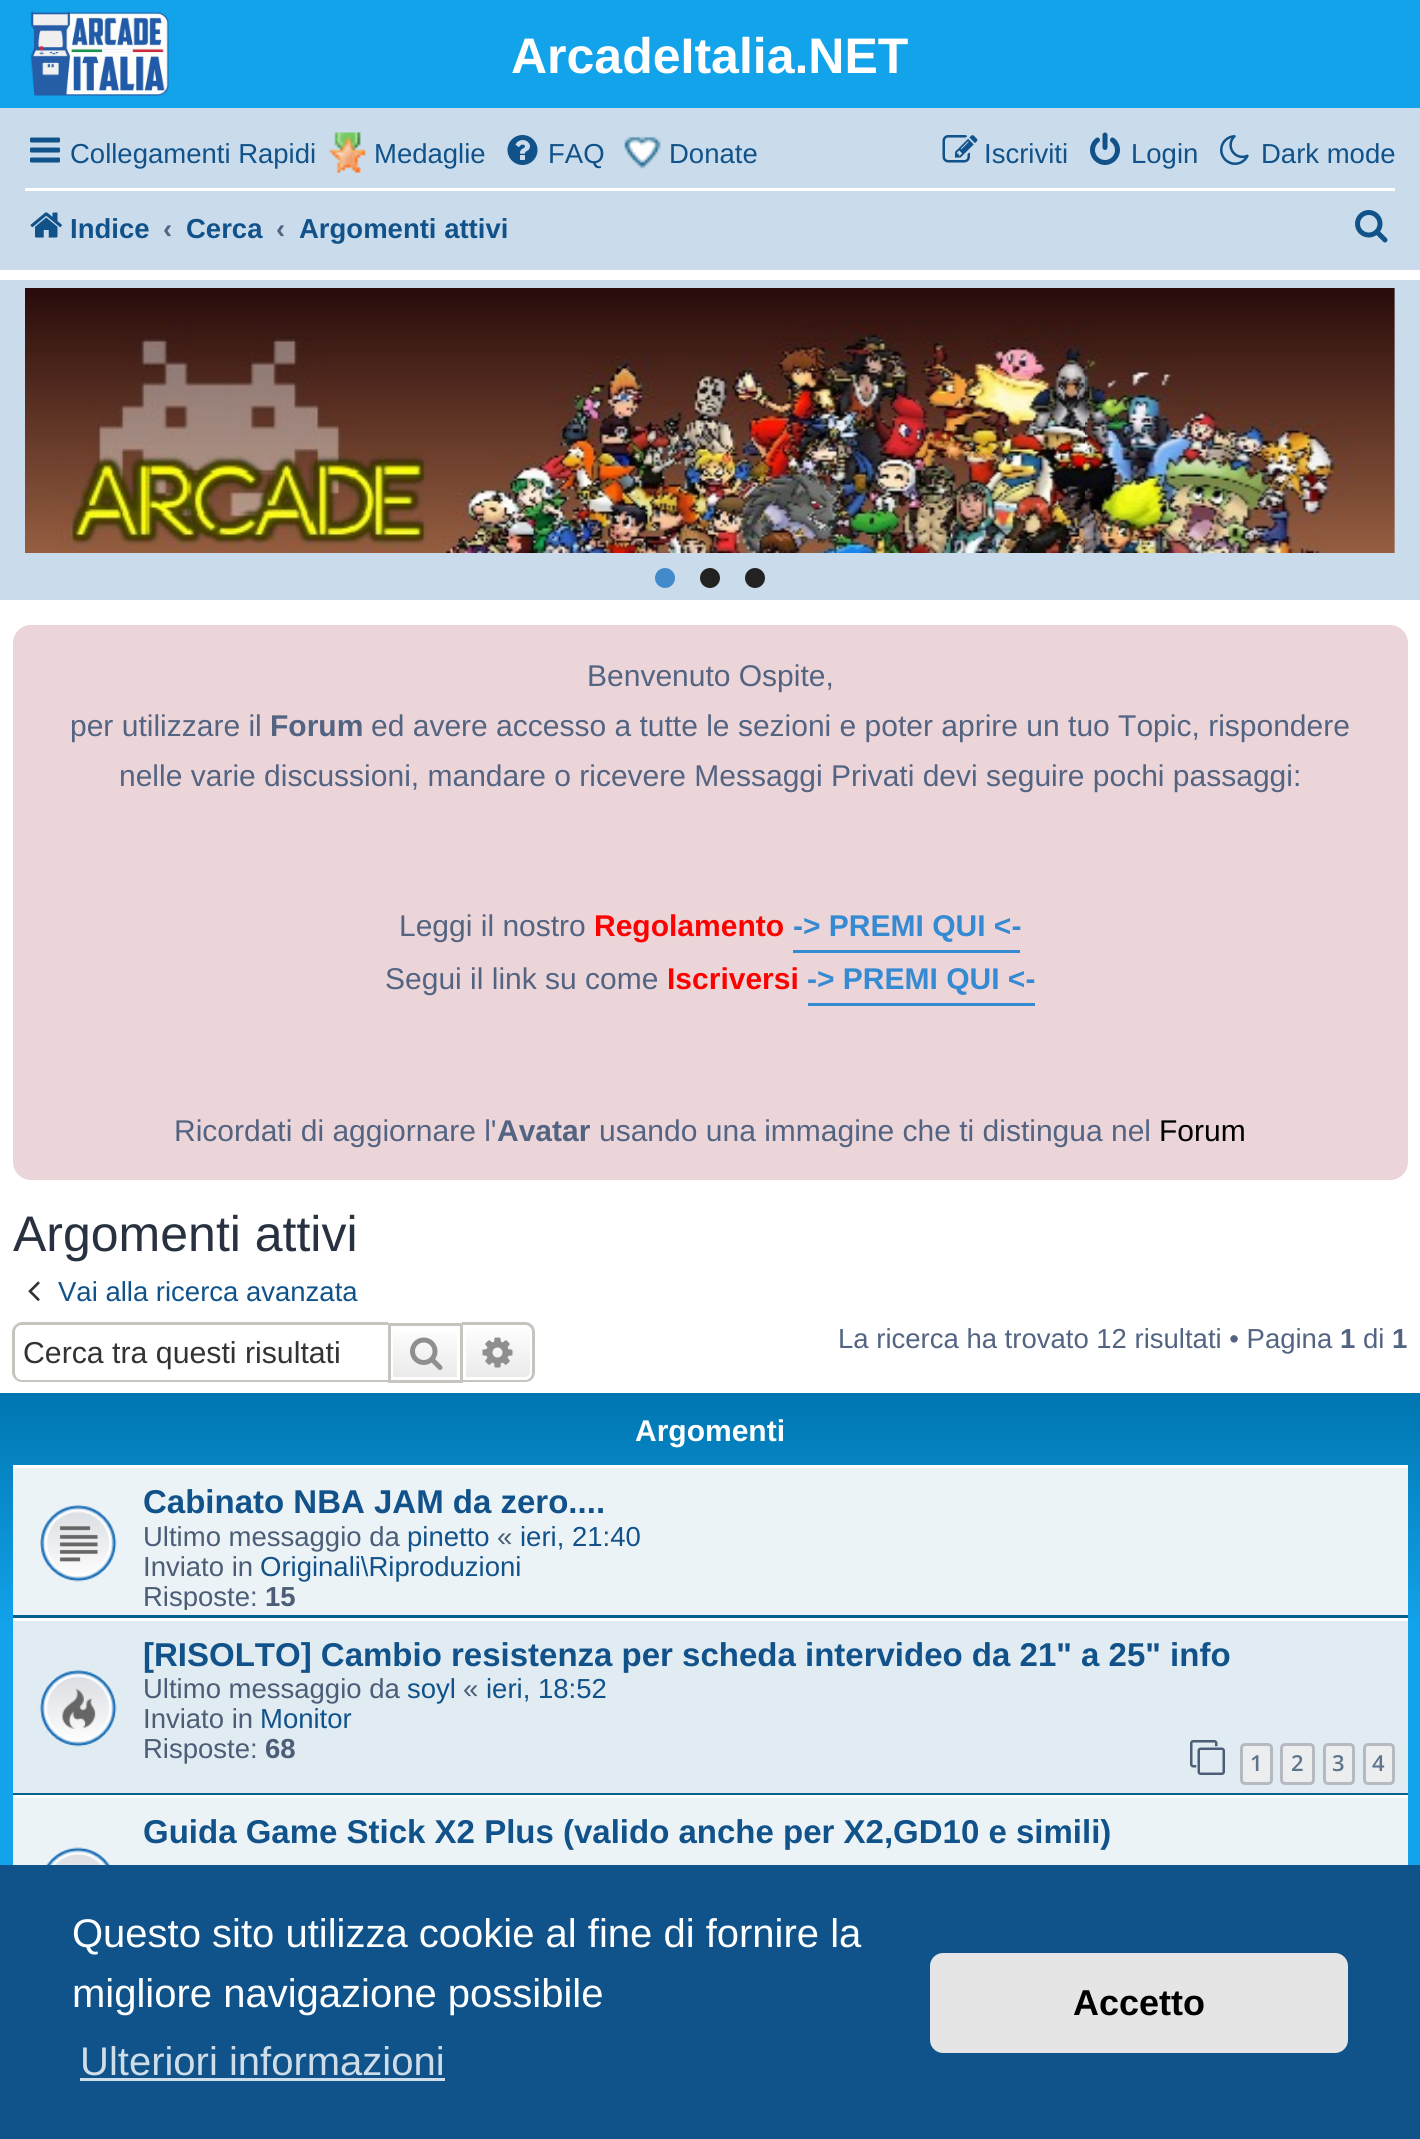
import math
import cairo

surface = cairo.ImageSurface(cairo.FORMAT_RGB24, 1420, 2139)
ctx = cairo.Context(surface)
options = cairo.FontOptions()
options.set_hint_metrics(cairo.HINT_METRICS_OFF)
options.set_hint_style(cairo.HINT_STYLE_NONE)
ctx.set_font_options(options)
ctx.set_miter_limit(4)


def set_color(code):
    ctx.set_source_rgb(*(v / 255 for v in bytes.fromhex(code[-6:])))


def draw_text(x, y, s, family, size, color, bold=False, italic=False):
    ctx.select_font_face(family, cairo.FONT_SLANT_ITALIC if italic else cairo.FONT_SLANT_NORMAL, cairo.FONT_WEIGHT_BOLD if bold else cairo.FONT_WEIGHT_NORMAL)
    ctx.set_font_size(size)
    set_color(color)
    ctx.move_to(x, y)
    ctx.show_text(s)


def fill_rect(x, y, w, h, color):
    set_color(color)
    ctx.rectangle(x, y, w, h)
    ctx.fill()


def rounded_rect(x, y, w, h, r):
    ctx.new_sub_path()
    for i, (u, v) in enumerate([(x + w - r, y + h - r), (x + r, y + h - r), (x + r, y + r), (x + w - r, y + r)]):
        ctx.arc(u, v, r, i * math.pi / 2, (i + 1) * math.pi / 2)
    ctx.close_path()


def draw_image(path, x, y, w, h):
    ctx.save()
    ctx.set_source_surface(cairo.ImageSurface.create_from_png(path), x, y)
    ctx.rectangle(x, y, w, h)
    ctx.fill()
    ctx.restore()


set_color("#ffffff")
ctx.paint()
fill_rect(0, 0, 1420, 108, "#12a3eb")
draw_image("assets/img1.png", 30, 11, 139, 85)
draw_text(511, 73, "ArcadeItalia.NET", "Liberation Sans", 50, "#ffffff", bold=True)
fill_rect(0, 108, 1420, 162, "#cadceb")
draw_image("assets/img2.png", 30, 137, 30, 26)
draw_text(70, 163, "Collegamenti Rapidi", "Liberation Sans", 27.5, "#105289")
draw_image("assets/img3.png", 329, 132, 37, 41)
draw_text(374, 163, "Medaglie", "Liberation Sans", 27.5, "#105289")
draw_image("assets/img4.png", 507, 135, 31, 30)
draw_text(548, 163, "FAQ", "Liberation Sans", 27.5, "#105289")
draw_image("assets/img5.png", 624, 136, 37, 33)
draw_text(669, 163, "Donate", "Liberation Sans", 27.5, "#105289")
draw_image("assets/img6.png", 942, 135, 36, 28)
draw_text(984, 163, "Iscriviti", "Liberation Sans", 27.5, "#105289")
draw_image("assets/img7.png", 1090, 132, 30, 33)
draw_text(1131, 163, "Login", "Liberation Sans", 27.5, "#105289")
draw_image("assets/img8.png", 1220, 135, 29, 30)
draw_text(1261, 163, "Dark mode", "Liberation Sans", 27.5, "#105289")
fill_rect(25, 188, 1370, 3, "#ffffff")
draw_image("assets/img9.png", 30, 212, 32, 26)
draw_text(70, 238, "Indice", "Liberation Sans", 27.5, "#105289", bold=True)
draw_text(163, 238, "‹", "Liberation Sans", 27.5, "#536482", bold=True)
draw_text(186, 238, "Cerca", "Liberation Sans", 27.5, "#105289", bold=True)
draw_text(276, 238, "‹", "Liberation Sans", 27.5, "#536482", bold=True)
draw_text(299, 238, "Argomenti attivi", "Liberation Sans", 27.5, "#105289", bold=True)
draw_image("assets/img10.png", 1355, 210, 33, 33)
fill_rect(0, 280, 1420, 320, "#cadceb")
draw_image("assets/img11.png", 25, 288, 1370, 265)
set_color("#428bca")
ctx.arc(665, 578, 10, 0, 2 * math.pi)
ctx.fill()
set_color("#222222")
ctx.arc(710, 578, 10, 0, 2 * math.pi)
ctx.fill()
ctx.arc(755, 578, 10, 0, 2 * math.pi)
ctx.fill()
set_color("#ecd5d8")
rounded_rect(13, 625, 1395, 555, 18)
ctx.fill()
draw_text(587, 686, "Benvenuto Ospite,", "Liberation Sans", 30, "#536482")
draw_text(70, 736, "per utilizzare il", "Liberation Sans", 30, "#536482")
draw_text(270, 736, "Forum", "Liberation Sans", 30, "#536482", bold=True)
draw_text(371, 736, "ed avere accesso a tutte le sezioni e poter aprire un tuo Topic, rispondere", "Liberation Sans", 30, "#536482")
draw_text(119, 786, "nelle varie discussioni, mandare o ricevere Messaggi Privati devi seguire pochi passaggi:", "Liberation Sans", 30, "#536482")
draw_text(399, 936, "Leggi il nostro", "Liberation Sans", 30, "#536482")
draw_text(594, 936, "Regolamento", "Liberation Sans", 30, "#ff0000", bold=True)
fill_rect(793, 950, 227, 3, "#368ad2")
draw_text(793, 936, "-> PREMI QUI <-", "Liberation Sans", 30, "#368ad2", bold=True)
draw_text(385, 989, "Segui il link su come", "Liberation Sans", 30, "#536482")
draw_text(667, 989, "Iscriversi", "Liberation Sans", 30, "#ff0000", bold=True)
fill_rect(808, 1003, 227, 3, "#368ad2")
draw_text(807, 989, "-> PREMI QUI <-", "Liberation Sans", 30, "#368ad2", bold=True)
draw_text(174, 1141, "Ricordati di aggiornare l'", "Liberation Sans", 30, "#536482")
draw_text(497, 1141, "Avatar", "Liberation Sans", 30, "#536482", bold=True)
draw_text(599, 1141, "usando una immagine che ti distingua nel", "Liberation Sans", 30, "#536482")
draw_text(1159, 1141, "Forum", "Liberation Sans", 30, "#000000")
draw_text(13, 1251, "Argomenti attivi", "Liberation Sans", 50, "#28313f")
draw_image("assets/img12.png", 28, 1281, 12, 20)
draw_text(58, 1301, "Vai alla ricerca avanzata", "Liberation Sans", 27.5, "#105289")
set_color("#c7c3bf")
ctx.set_fill_rule(cairo.FILL_RULE_EVEN_ODD)
ctx.new_path()
ctx.move_to(22, 1322)
ctx.line_to(388, 1322)
ctx.line_to(388, 1382)
ctx.line_to(22, 1382)
ctx.curve_to(17, 1382, 12, 1378, 12, 1372)
ctx.line_to(12, 1332)
ctx.curve_to(12, 1327, 17, 1322, 22, 1322)
ctx.close_path()
ctx.move_to(22, 1325)
ctx.line_to(388, 1325)
ctx.line_to(388, 1380)
ctx.line_to(22, 1380)
ctx.curve_to(18, 1380, 15, 1377, 15, 1372)
ctx.line_to(15, 1332)
ctx.curve_to(15, 1328, 18, 1325, 22, 1325)
ctx.close_path()
ctx.fill()
draw_text(23, 1363, "Cerca tra questi risultati", "Liberation Sans", 30.25, "#333333")
gradient = cairo.LinearGradient(425, 1325, 425, 1380)
gradient.add_color_stop_rgba(0, 1, 1, 1, 1)
gradient.add_color_stop_rgba(1, 0.914, 0.914, 0.914, 1)
ctx.set_source(gradient)
ctx.rectangle(393, 1331, 64, 46)
ctx.fill()
ctx.rectangle(389.5, 1324.5, 72, 57)
set_color("#c7c3bf")
ctx.set_line_width(3)
ctx.stroke()
draw_image("assets/img13.png", 410, 1337, 33, 33)
gradient = cairo.LinearGradient(498, 1325, 498, 1380)
gradient.add_color_stop_rgba(0, 1, 1, 1, 1)
gradient.add_color_stop_rgba(1, 0.914, 0.914, 0.914, 1)
ctx.set_source(gradient)
ctx.new_path()
ctx.move_to(464.5, 1326.5)
ctx.line_to(525, 1326.5)
ctx.curve_to(528.5, 1326.5, 531.5, 1329.5, 531.5, 1333)
ctx.line_to(531.5, 1372)
ctx.curve_to(531.5, 1375.5, 528.5, 1378.5, 525, 1378.5)
ctx.line_to(464.5, 1378.5)
ctx.close_path()
ctx.fill_preserve()
set_color("#ffffff")
ctx.stroke()
set_color("#c7c3bf")
ctx.new_path()
ctx.move_to(462, 1322)
ctx.line_to(525, 1322)
ctx.curve_to(531, 1322, 535, 1327, 535, 1332)
ctx.line_to(535, 1372)
ctx.curve_to(535, 1378, 531, 1382, 525, 1382)
ctx.line_to(462, 1382)
ctx.close_path()
ctx.move_to(462, 1325)
ctx.line_to(525, 1325)
ctx.curve_to(529, 1325, 532, 1328, 532, 1332)
ctx.line_to(532, 1372)
ctx.curve_to(532, 1377, 529, 1380, 525, 1380)
ctx.line_to(462, 1380)
ctx.close_path()
ctx.fill()
draw_image("assets/img14.png", 482, 1337, 31, 31)
draw_text(838, 1348, "La ricerca ha trovato 12 risultati • Pagina", "Liberation Sans", 27.5, "#536482")
draw_text(1340, 1348, "1", "Liberation Sans", 27.5, "#536482", bold=True)
draw_text(1363, 1348, "di", "Liberation Sans", 27.5, "#536482")
draw_text(1392, 1348, "1", "Liberation Sans", 27.5, "#536482", bold=True)
gradient = cairo.LinearGradient(710, 1393, 710, 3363)
gradient.add_color_stop_rgba(0, 0.416, 0.808, 1, 1)
gradient.add_color_stop_rgba(0, 0, 0.463, 0.694, 1)
gradient.add_color_stop_rgba(0.12, 0.071, 0.639, 0.922, 1)
gradient.add_color_stop_rgba(1, 0.071, 0.639, 0.922, 1)
ctx.set_source(gradient)
ctx.rectangle(0, 1393, 1420, 472)
ctx.fill()
draw_text(635, 1441, "Argomenti", "Liberation Sans", 30, "#ffffff", bold=True)
fill_rect(13, 1468, 1395, 147, "#ecf3f7")
fill_rect(13, 1465, 1395, 3, "#ffffff")
fill_rect(13, 1615, 1395, 3, "#00608f")
draw_image("assets/img15.png", 39, 1504, 78, 78)
draw_text(143, 1513, "Cabinato NBA JAM da zero....", "Liberation Sans", 33, "#105289", bold=True)
draw_text(143, 1546, "Ultimo messaggio da", "Liberation Sans", 27.5, "#4c5d77")
draw_text(407, 1546, "pinetto", "Liberation Sans", 27.5, "#105289")
draw_text(497, 1546, "«", "Liberation Sans", 27.5, "#4c5d77")
draw_text(520, 1546, "ieri, 21:40", "Liberation Sans", 27.5, "#105289")
draw_text(143, 1576, "Inviato in", "Liberation Sans", 27.5, "#4c5d77")
draw_text(260, 1576, "Originali\\Riproduzioni", "Liberation Sans", 27.5, "#105289")
ctx.save()
ctx.set_fill_rule(cairo.FILL_RULE_WINDING)
ctx.rectangle(13, 1473, 1395, 137)
ctx.clip()
draw_text(143, 1606, "Risposte:", "Liberation Sans", 27.5, "#4c5d77")
ctx.restore()
draw_text(265, 1606, "15", "Liberation Sans", 27.5, "#4c5d77", bold=True)
fill_rect(13, 1621, 1395, 172, "#e1ebf2")
fill_rect(13, 1618, 1395, 3, "#ffffff")
fill_rect(13, 1793, 1395, 2, "#00608f")
draw_image("assets/img16.png", 39, 1669, 78, 78)
draw_text(143, 1666, "[RISOLTO] Cambio resistenza per scheda intervideo da 21\" a 25\" info", "Liberation Sans", 33, "#105289", bold=True)
draw_text(143, 1698, "Ultimo messaggio da", "Liberation Sans", 27.5, "#4c5d77")
draw_text(407, 1698, "soyl", "Liberation Sans", 27.5, "#105289")
draw_text(463, 1698, "«", "Liberation Sans", 27.5, "#4c5d77")
draw_text(486, 1698, "ieri, 18:52", "Liberation Sans", 27.5, "#105289")
draw_text(143, 1728, "Inviato in", "Liberation Sans", 27.5, "#4c5d77")
draw_text(260, 1728, "Monitor", "Liberation Sans", 27.5, "#105289")
draw_text(143, 1758, "Risposte:", "Liberation Sans", 27.5, "#4c5d77")
draw_text(265, 1758, "68", "Liberation Sans", 27.5, "#4c5d77", bold=True)
draw_image("assets/img17.png", 1190, 1740, 35, 35)
set_color("#ecedee")
rounded_rect(1241.5, 1744.5, 30, 39, 3.5)
ctx.fill_preserve()
set_color("#b4bac0")
ctx.stroke()
draw_text(1250, 1771, "1", "Open Sans SemiBold", 22, "#5c758c")
set_color("#ecedee")
rounded_rect(1281.5, 1744.5, 32, 39, 3.5)
ctx.fill_preserve()
set_color("#b4bac0")
ctx.stroke()
draw_text(1291, 1771, "2", "Open Sans SemiBold", 22, "#5c758c")
set_color("#ecedee")
rounded_rect(1324.5, 1744.5, 29, 39, 3.5)
ctx.fill_preserve()
set_color("#b4bac0")
ctx.stroke()
draw_text(1332, 1771, "3", "Open Sans SemiBold", 22, "#5c758c")
set_color("#ecedee")
rounded_rect(1364.5, 1744.5, 29, 39, 3.5)
ctx.fill_preserve()
set_color("#b4bac0")
ctx.stroke()
draw_text(1372, 1771, "4", "Open Sans SemiBold", 22, "#5c758c")
fill_rect(13, 1798, 1395, 67, "#ecf3f7")
fill_rect(13, 1795, 1395, 3, "#ffffff")
draw_image("assets/img18.png", 45, 1847, 66, 18)
draw_text(143, 1843, "Guida Game Stick X2 Plus (valido anche per X2,GD10 e simili)", "Liberation Sans", 33, "#105289", bold=True)
fill_rect(0, 1865, 1420, 274, "#0f538a")
draw_text(72, 1947, "Questo sito utilizza cookie al fine di fornire la", "Liberation Sans", 40, "#ffffff")
draw_text(72, 2007, "migliore navigazione possibile", "Liberation Sans", 40, "#ffffff")
draw_text(80, 2075, "Ulteriori informazioni", "Liberation Sans", 40, "#cfdde8")
fill_rect(80, 2078, 365, 3, "#cfdde8")
set_color("#e5e5e5")
rounded_rect(930, 1953, 418, 100, 13)
ctx.fill()
draw_text(1073, 2015, "Accetto", "Liberation Sans", 36, "#000000", bold=True)
surface.write_to_png("output.png")
